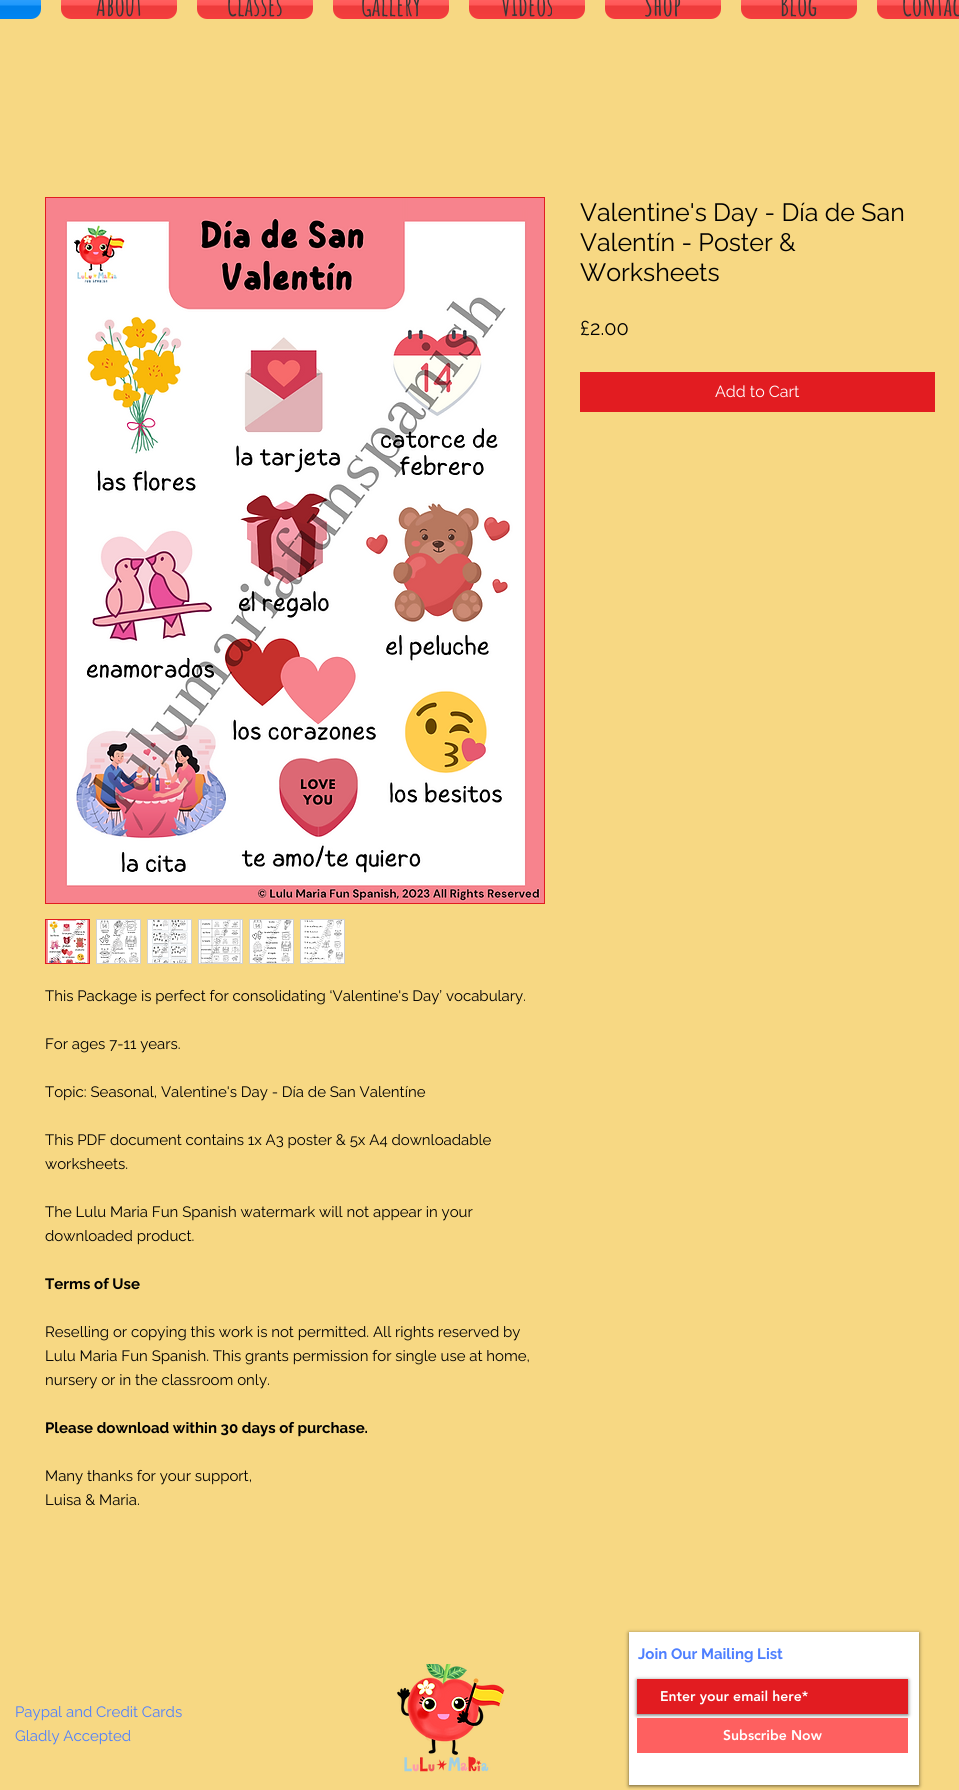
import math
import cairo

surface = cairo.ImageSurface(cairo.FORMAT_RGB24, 959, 1790)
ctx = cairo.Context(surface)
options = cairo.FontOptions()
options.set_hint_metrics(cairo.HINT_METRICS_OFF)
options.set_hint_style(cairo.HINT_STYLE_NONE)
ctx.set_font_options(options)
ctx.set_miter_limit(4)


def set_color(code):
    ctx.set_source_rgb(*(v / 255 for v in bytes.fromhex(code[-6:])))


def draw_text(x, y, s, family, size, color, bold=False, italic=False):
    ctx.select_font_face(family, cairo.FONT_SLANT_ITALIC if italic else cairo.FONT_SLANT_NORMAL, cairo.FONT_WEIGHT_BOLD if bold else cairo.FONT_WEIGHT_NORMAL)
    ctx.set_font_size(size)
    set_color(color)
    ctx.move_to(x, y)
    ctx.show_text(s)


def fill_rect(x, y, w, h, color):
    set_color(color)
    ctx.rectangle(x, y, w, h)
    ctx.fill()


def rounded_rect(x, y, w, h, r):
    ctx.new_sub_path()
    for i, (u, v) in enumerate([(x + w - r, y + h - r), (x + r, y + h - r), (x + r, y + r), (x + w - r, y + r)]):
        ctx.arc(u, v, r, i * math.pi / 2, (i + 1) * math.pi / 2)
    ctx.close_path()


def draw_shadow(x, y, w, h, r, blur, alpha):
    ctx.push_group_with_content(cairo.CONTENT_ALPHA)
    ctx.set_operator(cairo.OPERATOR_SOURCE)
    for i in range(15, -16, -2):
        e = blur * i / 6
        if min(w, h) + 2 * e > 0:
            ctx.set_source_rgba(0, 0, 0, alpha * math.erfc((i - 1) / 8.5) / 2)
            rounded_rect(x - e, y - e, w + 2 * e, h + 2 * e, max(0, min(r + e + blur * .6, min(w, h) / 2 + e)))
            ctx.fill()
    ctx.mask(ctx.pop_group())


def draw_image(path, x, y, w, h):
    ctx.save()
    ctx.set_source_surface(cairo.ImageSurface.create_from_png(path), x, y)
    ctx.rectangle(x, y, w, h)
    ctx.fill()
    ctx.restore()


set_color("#f7d883")
ctx.paint()
set_color("#008afc")
rounded_rect(-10, -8, 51, 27, 10)
ctx.fill()
draw_image("assets/img1.png", 0, 0, 41, 19)
set_color("#ff4040")
rounded_rect(61, -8, 116, 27, 10)
ctx.fill()
draw_image("assets/img2.png", 61, 0, 116, 19)
draw_text(96, 16, "About", "Amatic SC", 29, "#383838", bold=True)
set_color("#ff4040")
rounded_rect(197, -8, 116, 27, 10)
ctx.fill()
draw_image("assets/img3.png", 197, 0, 116, 19)
draw_text(227, 16, "Classes", "Amatic SC", 29, "#383838", bold=True)
set_color("#ff4040")
rounded_rect(333, -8, 116, 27, 10)
ctx.fill()
draw_image("assets/img2.png", 333, 0, 116, 19)
draw_text(361, 16, "Gallery", "Amatic SC", 29, "#383838", bold=True)
set_color("#ff4040")
rounded_rect(469, -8, 116, 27, 10)
ctx.fill()
draw_image("assets/img2.png", 469, 0, 116, 19)
draw_text(501, 16, "Videos", "Amatic SC", 29, "#383838", bold=True)
set_color("#ff4040")
rounded_rect(605, -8, 116, 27, 10)
ctx.fill()
draw_image("assets/img2.png", 605, 0, 116, 19)
draw_text(644, 16, "Shop", "Amatic SC", 29, "#383838", bold=True)
set_color("#ff4040")
rounded_rect(741, -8, 116, 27, 10)
ctx.fill()
draw_image("assets/img2.png", 741, 0, 116, 19)
draw_text(780, 16, "Blog", "Amatic SC", 29, "#383838", bold=True)
set_color("#ff4040")
rounded_rect(877, -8, 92, 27, 10)
ctx.fill()
draw_image("assets/img4.png", 877, 0, 82, 19)
draw_text(902, 16, "Contac", "Amatic SC", 29, "#383838", bold=True)
draw_text(580, 221, "Valentine's Day - Día de San", "Raleway", 25, "#000000")
draw_text(580, 251, "Valentín - Poster &", "Raleway", 25, "#000000")
draw_text(580, 281, "Worksheets", "Raleway", 25, "#000000")
draw_text(580, 335, "£2.00", "Raleway", 20, "#000000")
fill_rect(580, 372, 355, 40, "#e21c21")
draw_text(715, 397, "Add to Cart", "Raleway", 16, "#ffffff")
ctx.rectangle(45.5, 197.5, 499, 706)
set_color("#e21c21")
ctx.set_line_width(1)
ctx.stroke()
draw_image("assets/img5.png", 46, 198, 498, 705)
ctx.rectangle(45.5, 919.5, 44, 44)
ctx.stroke()
draw_image("assets/img6.png", 46, 920, 43, 43)
fill_rect(96, 919, 45, 45, "#d1d1d1")
draw_image("assets/img7.png", 97, 920, 43, 43)
fill_rect(147, 919, 45, 45, "#d1d1d1")
draw_image("assets/img8.png", 148, 920, 43, 43)
fill_rect(198, 919, 45, 45, "#d1d1d1")
draw_image("assets/img9.png", 199, 920, 43, 43)
fill_rect(249, 919, 45, 45, "#d1d1d1")
draw_image("assets/img10.png", 250, 920, 43, 43)
fill_rect(300, 919, 45, 45, "#d1d1d1")
draw_image("assets/img11.png", 301, 920, 43, 43)
draw_text(45, 1001, "This Package is perfect for consolidating ‘Valentine's Day’ vocabulary.", "Raleway", 15, "#000000")
draw_text(45, 1049, "For ages 7-11 years.", "Raleway", 15, "#000000")
draw_text(45, 1097, "Topic: Seasonal, Valentine's Day - Día de San Valentíne", "Raleway", 15, "#000000")
draw_text(45, 1145, "This PDF document contains 1x A3 poster & 5x A4 downloadable", "Raleway", 15, "#000000")
draw_text(45, 1169, "worksheets.", "Raleway", 15, "#000000")
draw_text(45, 1217, "The Lulu Maria Fun Spanish watermark will not appear in your", "Raleway", 15, "#000000")
draw_text(45, 1241, "downloaded product.", "Raleway", 15, "#000000")
draw_text(45, 1289, "Terms of Use", "Raleway", 15, "#000000", bold=True)
draw_text(45, 1337, "Reselling or copying this work is not permitted. All rights reserved by", "Raleway", 15, "#000000")
draw_text(45, 1361, "Lulu Maria Fun Spanish. This grants permission for single use at home,", "Raleway", 15, "#000000")
draw_text(45, 1385, "nursery or in the classroom only.", "Raleway", 15, "#000000")
draw_text(45, 1433, "Please download within 30 days of purchase.", "Raleway", 15, "#000000", bold=True)
draw_text(45, 1481, "Many thanks for your support,", "Raleway", 15, "#000000")
draw_text(45, 1505, "Luisa & Maria.", "Raleway", 15, "#000000")
draw_text(15, 1717, "Paypal and Credit Cards", "Raleway", 15, "#4e7fff")
draw_text(15, 1741, "Gladly Accepted", "Raleway", 15, "#4e7fff")
draw_image("assets/img12.png", 397, 1664, 108, 108)
set_color("#000000")
draw_shadow(629, 1633, 290, 153, 0, 2, 0.6)
fill_rect(629, 1632, 290, 153, "#ffffff")
draw_text(638, 1659, "Join Our Mailing List", "Raleway", 15, "#4e7fff", bold=True)
set_color("#000000")
draw_shadow(637, 1680, 271, 35, 0, 2, 0.6)
fill_rect(637, 1679, 271, 35, "#e21c21")
draw_text(660, 1701, "Enter your email here*", "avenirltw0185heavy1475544 Black", 14, "#ffffff")
fill_rect(637, 1718, 271, 35, "#fe6060")
draw_text(723, 1740, "Subscribe Now", "avenirltw0185heavy1475544 Black", 14, "#ffffff")
surface.write_to_png("output.png")
